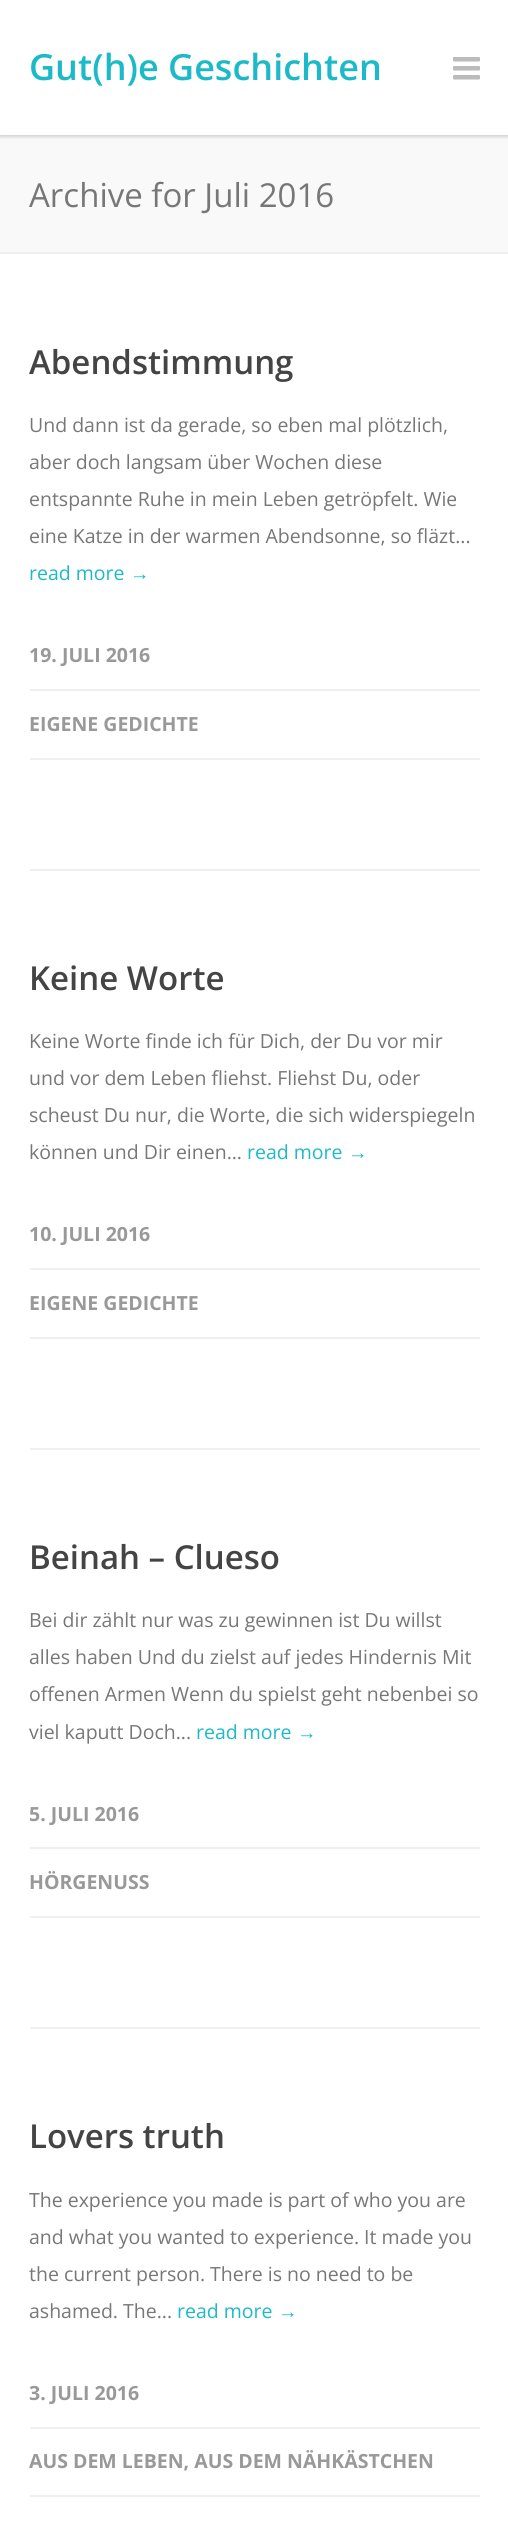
import math
import cairo

surface = cairo.ImageSurface(cairo.FORMAT_RGB24, 508, 2529)
ctx = cairo.Context(surface)
options = cairo.FontOptions()
options.set_hint_metrics(cairo.HINT_METRICS_OFF)
options.set_hint_style(cairo.HINT_STYLE_NONE)
ctx.set_font_options(options)
ctx.set_miter_limit(4)


def set_color(code):
    ctx.set_source_rgb(*(v / 255 for v in bytes.fromhex(code[-6:])))


def draw_text(x, y, s, family, size, color, bold=False, italic=False):
    ctx.select_font_face(family, cairo.FONT_SLANT_ITALIC if italic else cairo.FONT_SLANT_NORMAL, cairo.FONT_WEIGHT_BOLD if bold else cairo.FONT_WEIGHT_NORMAL)
    ctx.set_font_size(size)
    set_color(color)
    ctx.move_to(x, y)
    ctx.show_text(s)


def fill_rect(x, y, w, h, color):
    set_color(color)
    ctx.rectangle(x, y, w, h)
    ctx.fill()


def rounded_rect(x, y, w, h, r):
    ctx.new_sub_path()
    for i, (u, v) in enumerate([(x + w - r, y + h - r), (x + r, y + h - r), (x + r, y + r), (x + w - r, y + r)]):
        ctx.arc(u, v, r, i * math.pi / 2, (i + 1) * math.pi / 2)
    ctx.close_path()


def draw_shadow(x, y, w, h, r, blur, alpha):
    ctx.push_group_with_content(cairo.CONTENT_ALPHA)
    ctx.set_operator(cairo.OPERATOR_SOURCE)
    for i in range(15, -16, -2):
        e = blur * i / 6
        if min(w, h) + 2 * e > 0:
            ctx.set_source_rgba(0, 0, 0, alpha * math.erfc((i - 1) / 8.5) / 2)
            rounded_rect(x - e, y - e, w + 2 * e, h + 2 * e, max(0, min(r + e + blur * .6, min(w, h) / 2 + e)))
            ctx.fill()
    ctx.mask(ctx.pop_group())


def draw_image(path, x, y, w, h):
    ctx.save()
    ctx.set_source_surface(cairo.ImageSurface.create_from_png(path), x, y)
    ctx.rectangle(x, y, w, h)
    ctx.fill()
    ctx.restore()


set_color("#ffffff")
ctx.paint()
fill_rect(0, 135, 508, 117, "#f9f9f9")
ctx.save()
ctx.rectangle(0, 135, 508, 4)
ctx.clip()
set_color("#000000")
draw_shadow(-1, -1, 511, 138, 0, 1.5, 0.16)
ctx.restore()
draw_text(29, 80, "Gut(h)e Geschichten", "Open Sans SemiBold", 36, "#1cbac8")
draw_image("assets/img1.png", 453, 57, 27, 23)
fill_rect(0, 252, 508, 2, "#efefef")
draw_text(29, 207, "Archive for Juli 2016", "Open Sans", 33, "#777777")
fill_rect(30, 869, 450, 2, "#efefef")
draw_text(29, 374, "Abendstimmung", "Open Sans SemiBold", 33, "#444444")
draw_text(29, 432, "Und dann ist da gerade, so eben mal plötzlich,", "Open Sans", 19.5, "#777777")
draw_text(29, 469, "aber doch langsam über Wochen diese", "Open Sans", 19.5, "#777777")
draw_text(29, 506, "entspannte Ruhe in mein Leben getröpfelt. Wie", "Open Sans", 19.5, "#777777")
draw_text(29, 543, "eine Katze in der warmen Abendsonne, so fläzt...", "Open Sans", 19.5, "#777777")
draw_text(29, 580, "read more", "Open Sans", 19.5, "#1cbac8")
draw_text(130, 580, "→", "Liberation Sans", 19.5, "#1cbac8")
fill_rect(30, 689, 450, 2, "#efefef")
draw_text(29, 662, "19. JULI 2016", "Open Sans", 19.5, "#999999", bold=True)
fill_rect(30, 758, 450, 2, "#efefef")
draw_text(29, 731, "EIGENE GEDICHTE", "Open Sans", 19.5, "#999999", bold=True)
fill_rect(30, 1448, 450, 2, "#efefef")
draw_text(29, 990, "Keine Worte", "Open Sans SemiBold", 33, "#444444")
draw_text(29, 1048, "Keine Worte finde ich für Dich, der Du vor mir", "Open Sans", 19.5, "#777777")
draw_text(29, 1085, "und vor dem Leben fliehst. Fliehst Du, oder", "Open Sans", 19.5, "#777777")
draw_text(29, 1122, "scheust Du nur, die Worte, die sich widerspiegeln", "Open Sans", 19.5, "#777777")
draw_text(29, 1159, "können und Dir einen...", "Open Sans", 19.5, "#777777")
draw_text(247, 1159, "read more", "Open Sans", 19.5, "#1cbac8")
draw_text(348, 1159, "→", "Liberation Sans", 19.5, "#1cbac8")
fill_rect(30, 1268, 450, 2, "#efefef")
draw_text(29, 1241, "10. JULI 2016", "Open Sans", 19.5, "#999999", bold=True)
fill_rect(30, 1337, 450, 2, "#efefef")
draw_text(29, 1310, "EIGENE GEDICHTE", "Open Sans", 19.5, "#999999", bold=True)
fill_rect(30, 2027, 450, 2, "#efefef")
draw_text(29, 1569, "Beinah – Clueso", "Open Sans SemiBold", 33, "#444444")
draw_text(29, 1627, "Bei dir zählt nur was zu gewinnen ist Du willst", "Open Sans", 19.5, "#777777")
draw_text(29, 1664, "alles haben Und du zielst auf jedes Hindernis Mit", "Open Sans", 19.5, "#777777")
draw_text(29, 1701, "offenen Armen Wenn du spielst geht nebenbei so", "Open Sans", 19.5, "#777777")
draw_text(29, 1739, "viel kaputt Doch...", "Open Sans", 19.5, "#777777")
draw_text(196, 1739, "read more", "Open Sans", 19.5, "#1cbac8")
draw_text(297, 1739, "→", "Liberation Sans", 19.5, "#1cbac8")
fill_rect(30, 1847, 450, 2, "#efefef")
draw_text(29, 1821, "5. JULI 2016", "Open Sans", 19.5, "#999999", bold=True)
fill_rect(30, 1916, 450, 2, "#efefef")
draw_text(29, 1889, "HÖRGENUSS", "Open Sans", 19.5, "#999999", bold=True)
draw_text(29, 2148, "Lovers truth", "Open Sans SemiBold", 33, "#444444")
draw_text(29, 2207, "The experience you made is part of who you are", "Open Sans", 19.5, "#777777")
draw_text(29, 2244, "and what you wanted to experience. It made you", "Open Sans", 19.5, "#777777")
draw_text(29, 2281, "the current person. There is no need to be", "Open Sans", 19.5, "#777777")
draw_text(29, 2318, "ashamed. The...", "Open Sans", 19.5, "#777777")
draw_text(177, 2318, "read more", "Open Sans", 19.5, "#1cbac8")
draw_text(278, 2318, "→", "Liberation Sans", 19.5, "#1cbac8")
fill_rect(30, 2427, 450, 2, "#efefef")
draw_text(29, 2400, "3. JULI 2016", "Open Sans", 19.5, "#999999", bold=True)
fill_rect(30, 2495, 450, 2, "#efefef")
draw_text(29, 2468, "AUS DEM LEBEN, AUS DEM NÄHKÄSTCHEN", "Open Sans", 19.5, "#999999", bold=True)
surface.write_to_png("output.png")
